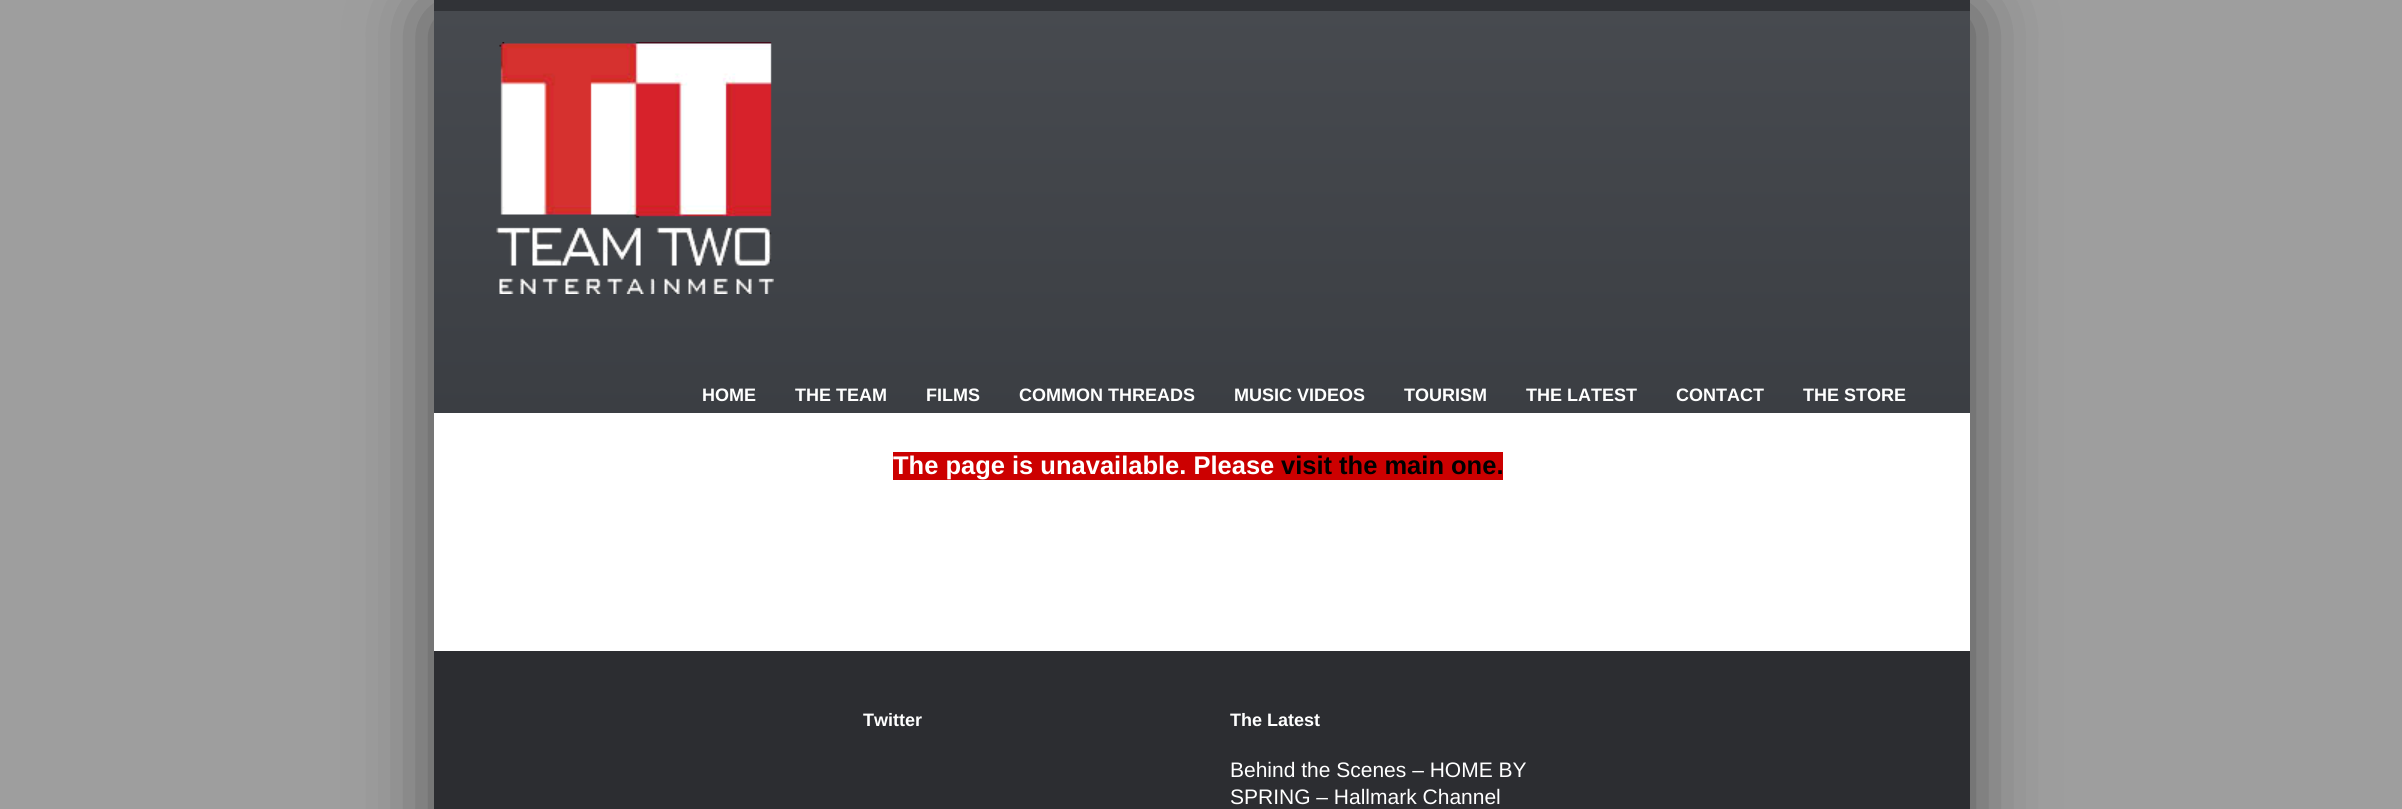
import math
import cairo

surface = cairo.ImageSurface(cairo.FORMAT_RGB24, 2402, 809)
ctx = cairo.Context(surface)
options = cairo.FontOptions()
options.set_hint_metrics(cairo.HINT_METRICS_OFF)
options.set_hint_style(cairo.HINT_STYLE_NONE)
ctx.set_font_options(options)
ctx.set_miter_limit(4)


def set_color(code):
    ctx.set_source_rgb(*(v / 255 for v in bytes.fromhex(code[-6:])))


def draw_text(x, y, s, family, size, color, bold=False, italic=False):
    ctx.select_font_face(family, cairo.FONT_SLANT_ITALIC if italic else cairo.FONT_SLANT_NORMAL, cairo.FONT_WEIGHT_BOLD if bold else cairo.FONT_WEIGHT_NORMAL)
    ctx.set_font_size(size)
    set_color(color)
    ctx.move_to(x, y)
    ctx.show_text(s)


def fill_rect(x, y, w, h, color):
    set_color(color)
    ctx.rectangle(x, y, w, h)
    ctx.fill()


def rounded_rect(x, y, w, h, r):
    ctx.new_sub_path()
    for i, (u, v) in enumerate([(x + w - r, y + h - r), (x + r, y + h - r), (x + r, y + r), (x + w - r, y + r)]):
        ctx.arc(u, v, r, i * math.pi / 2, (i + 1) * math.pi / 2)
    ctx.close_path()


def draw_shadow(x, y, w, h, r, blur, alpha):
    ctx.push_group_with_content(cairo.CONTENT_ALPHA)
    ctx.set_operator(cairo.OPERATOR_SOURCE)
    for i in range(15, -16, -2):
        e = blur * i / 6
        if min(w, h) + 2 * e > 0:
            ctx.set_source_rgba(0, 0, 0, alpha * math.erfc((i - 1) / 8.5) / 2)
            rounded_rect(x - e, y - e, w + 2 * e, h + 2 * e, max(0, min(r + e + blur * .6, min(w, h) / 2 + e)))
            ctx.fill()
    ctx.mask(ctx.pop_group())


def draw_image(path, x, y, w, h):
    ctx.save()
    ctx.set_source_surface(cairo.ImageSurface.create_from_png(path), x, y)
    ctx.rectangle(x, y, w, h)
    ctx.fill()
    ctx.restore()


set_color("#9e9e9e")
ctx.paint()
set_color("#000000")
draw_shadow(434, 15, 1536, 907, 0, 37.5, 0.5)
fill_rect(434, 413, 1536, 238, "#ffffff")
fill_rect(434, 0, 1536, 11, "#313337")
gradient = cairo.LinearGradient(434, 11, 434, 413)
gradient.add_color_stop_rgba(0, 0.278, 0.29, 0.31, 1)
gradient.add_color_stop_rgba(1, 0.231, 0.243, 0.263, 1)
ctx.set_source(gradient)
ctx.rectangle(434, 11, 1536, 402)
ctx.fill()
draw_image("assets/img1.png", 496, 42, 278, 252)
draw_text(702, 401, "HOME", "Liberation Sans", 18, "#ffffff", bold=True)
draw_text(795, 401, "THE TEAM", "Liberation Sans", 18, "#ffffff", bold=True)
draw_text(926, 401, "FILMS", "Liberation Sans", 18, "#ffffff", bold=True)
draw_text(1019, 401, "COMMON THREADS", "Liberation Sans", 18, "#ffffff", bold=True)
draw_text(1234, 401, "MUSIC VIDEOS", "Liberation Sans", 18, "#ffffff", bold=True)
draw_text(1404, 401, "TOURISM", "Liberation Sans", 18, "#ffffff", bold=True)
draw_text(1526, 401, "THE LATEST", "Liberation Sans", 18, "#ffffff", bold=True)
draw_text(1676, 401, "CONTACT", "Liberation Sans", 18, "#ffffff", bold=True)
draw_text(1803, 401, "THE STORE", "Liberation Sans", 18, "#ffffff", bold=True)
fill_rect(893, 452, 610, 28, "#cc0000")
draw_text(893, 474, "The page is unavailable. Please", "Liberation Sans", 25.5, "#ffffff", bold=True)
draw_text(1281, 474, "visit the main one.", "Liberation Sans", 25.5, "#000000", bold=True)
fill_rect(434, 651, 1536, 158, "#2c2d31")
draw_text(863, 726, "Twitter", "Liberation Sans", 18, "#ffffff", bold=True)
draw_text(1230, 726, "The Latest", "Liberation Sans", 18, "#ffffff", bold=True)
draw_text(1230, 777, "Behind the Scenes – HOME BY", "Liberation Sans", 21, "#ffffff")
draw_text(1230, 804, "SPRING – Hallmark Channel", "Liberation Sans", 21, "#ffffff")
surface.write_to_png("output.png")
